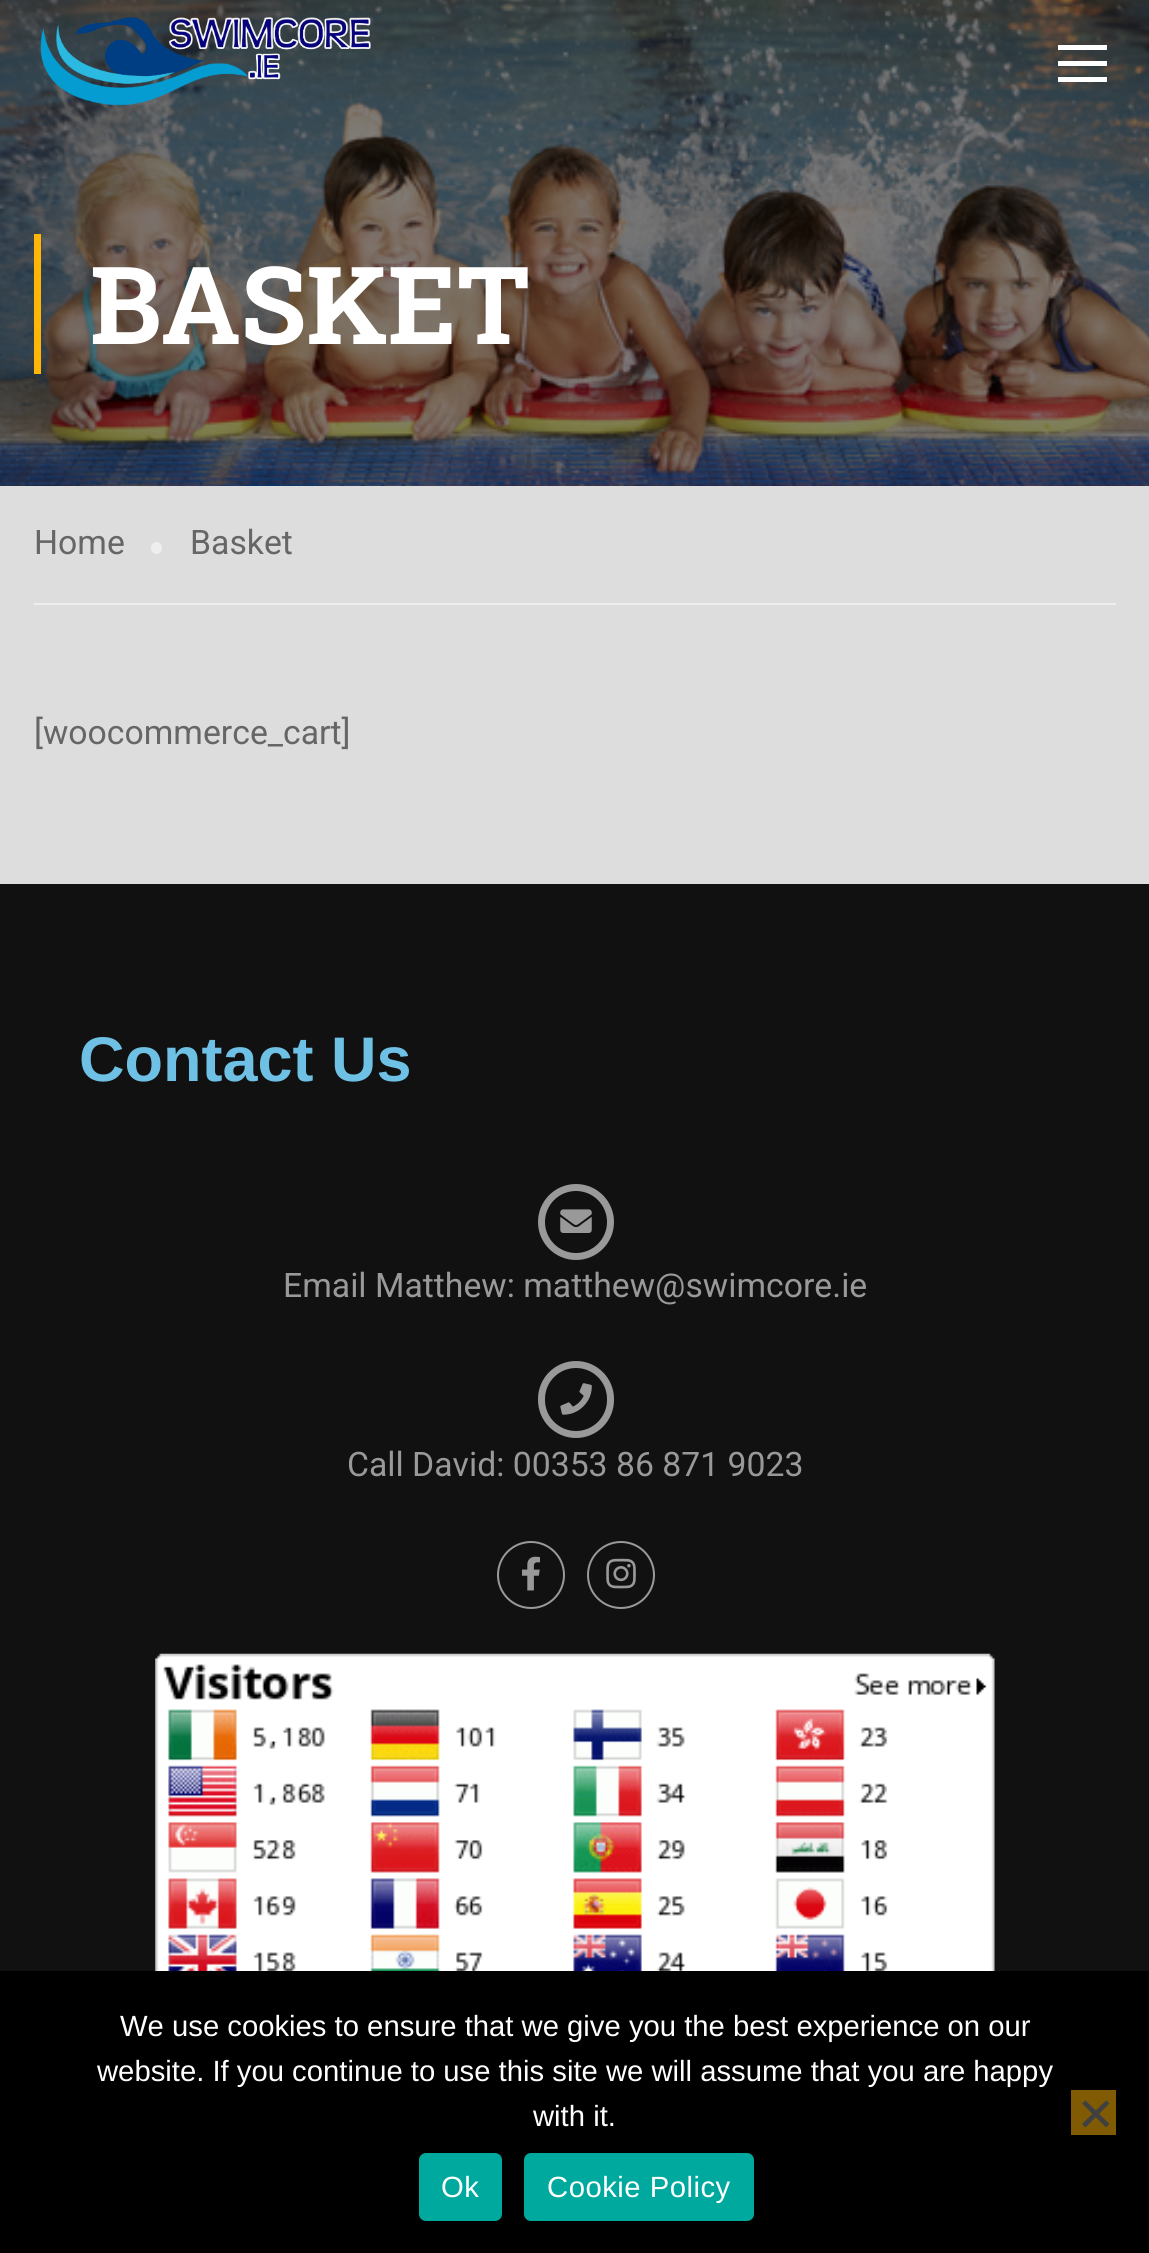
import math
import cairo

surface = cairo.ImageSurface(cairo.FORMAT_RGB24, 1149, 2253)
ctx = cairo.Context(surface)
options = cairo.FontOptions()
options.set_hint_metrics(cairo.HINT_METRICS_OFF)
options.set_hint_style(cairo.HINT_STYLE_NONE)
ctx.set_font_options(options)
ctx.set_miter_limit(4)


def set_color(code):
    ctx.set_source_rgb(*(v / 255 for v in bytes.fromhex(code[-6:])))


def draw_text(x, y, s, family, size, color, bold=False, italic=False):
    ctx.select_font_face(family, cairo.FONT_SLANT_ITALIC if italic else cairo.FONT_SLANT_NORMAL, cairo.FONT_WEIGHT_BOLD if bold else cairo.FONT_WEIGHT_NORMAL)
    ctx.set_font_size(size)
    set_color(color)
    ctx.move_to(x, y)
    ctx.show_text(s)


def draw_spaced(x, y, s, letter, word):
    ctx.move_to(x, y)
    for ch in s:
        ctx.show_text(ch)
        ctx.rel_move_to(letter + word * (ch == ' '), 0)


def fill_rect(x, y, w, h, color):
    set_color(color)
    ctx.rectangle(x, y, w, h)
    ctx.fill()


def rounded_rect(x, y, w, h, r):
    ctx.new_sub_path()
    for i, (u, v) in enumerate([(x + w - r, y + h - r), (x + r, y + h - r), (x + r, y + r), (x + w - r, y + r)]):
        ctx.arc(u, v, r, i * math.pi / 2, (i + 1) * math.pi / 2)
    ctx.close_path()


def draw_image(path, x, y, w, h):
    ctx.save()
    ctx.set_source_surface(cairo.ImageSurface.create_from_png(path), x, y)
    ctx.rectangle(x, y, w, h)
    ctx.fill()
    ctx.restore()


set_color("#dedddd")
ctx.paint()
draw_image("assets/img2.png", 0, 0, 1149, 486)
draw_image("assets/img1.png", 40, 17, 331, 89)
fill_rect(1058, 45, 49, 5, "#ffffff")
fill_rect(1058, 61, 49, 5, "#ffffff")
fill_rect(1058, 77, 49, 5, "#ffffff")
fill_rect(34, 234, 7, 140, "#ffb606")
draw_text(90, 344, "BASKET", "Roboto Slab", 108, "#ffffff", bold=True)
fill_rect(34, 603, 1082, 2, "#eeeeee")
draw_text(34, 554, "Home", "Roboto", 33.75, "#666666")
set_color("#eeeeee")
rounded_rect(151, 542, 11, 12, 5.5)
ctx.fill()
draw_text(190, 554, "Basket", "Roboto", 33.75, "#666666")
draw_text(34, 744, "[woocommerce_cart]", "Roboto", 33.75, "#666666")
fill_rect(0, 884, 1149, 1087, "#111111")
draw_text(79, 1081, "Contact Us", "Liberation Sans", 63, "#6ec1e4", bold=True)
ctx.new_path()
ctx.arc(576, 1222, 34.5, 0, 2 * math.pi)
set_color("#999999")
ctx.set_line_width(7)
ctx.stroke()
draw_image("assets/img3.png", 560, 1209, 32, 24)
draw_text(283, 1297, "Email Matthew: matthew@swimcore.ie", "Roboto", 33.75, "#999999")
rounded_rect(541.5, 1364.5, 69, 70, 34.5)
ctx.stroke()
draw_image("assets/img4.png", 560, 1383, 32, 32)
draw_text(347, 1476, "Call David: 00353 86 871 9023", "Roboto", 33.75, "#999999")
ctx.new_path()
ctx.arc(531, 1575, 33, 0, 2 * math.pi)
ctx.set_line_width(2)
ctx.stroke()
draw_image("assets/img5.png", 521, 1556, 20, 35)
ctx.arc(621, 1575, 33, 0, 2 * math.pi)
ctx.stroke()
draw_image("assets/img6.png", 606, 1558, 30, 31)
draw_image("assets/img7.png", 155, 1653, 840, 318)
fill_rect(0, 1971, 1149, 282, "#000000")
draw_text(120, 2036, "We use cookies to ensure that we give you the best experience on our", "Liberation Sans", 29.25, "#ffffff")
draw_text(97, 2081, "website. If you continue to use this site we will assume that you are happy", "Liberation Sans", 29.25, "#ffffff")
draw_text(533, 2126, "with it.", "Liberation Sans", 29.25, "#ffffff")
fill_rect(1071, 2090, 45, 45, "#805b03")
set_color("#404040")
ctx.new_path()
ctx.move_to(1106, 2100.5)
ctx.line_to(1109.5, 2103.5)
ctx.line_to(1085.5, 2127.5)
ctx.line_to(1082, 2124)
ctx.close_path()
ctx.fill()
ctx.new_path()
ctx.move_to(1082, 2103.5)
ctx.line_to(1085.5, 2100.5)
ctx.line_to(1109.5, 2124)
ctx.line_to(1106, 2127.5)
ctx.close_path()
ctx.fill()
set_color("#00a99d")
rounded_rect(419, 2153, 83, 68, 7)
ctx.fill()
set_color("#ffffff")
draw_spaced(441, 2197, "Ok", 0.5, 0)
set_color("#00a99d")
rounded_rect(524, 2153, 230, 68, 7)
ctx.fill()
set_color("#ffffff")
draw_spaced(547, 2197, "Cookie Policy", 0.5, 0)
surface.write_to_png("output.png")
